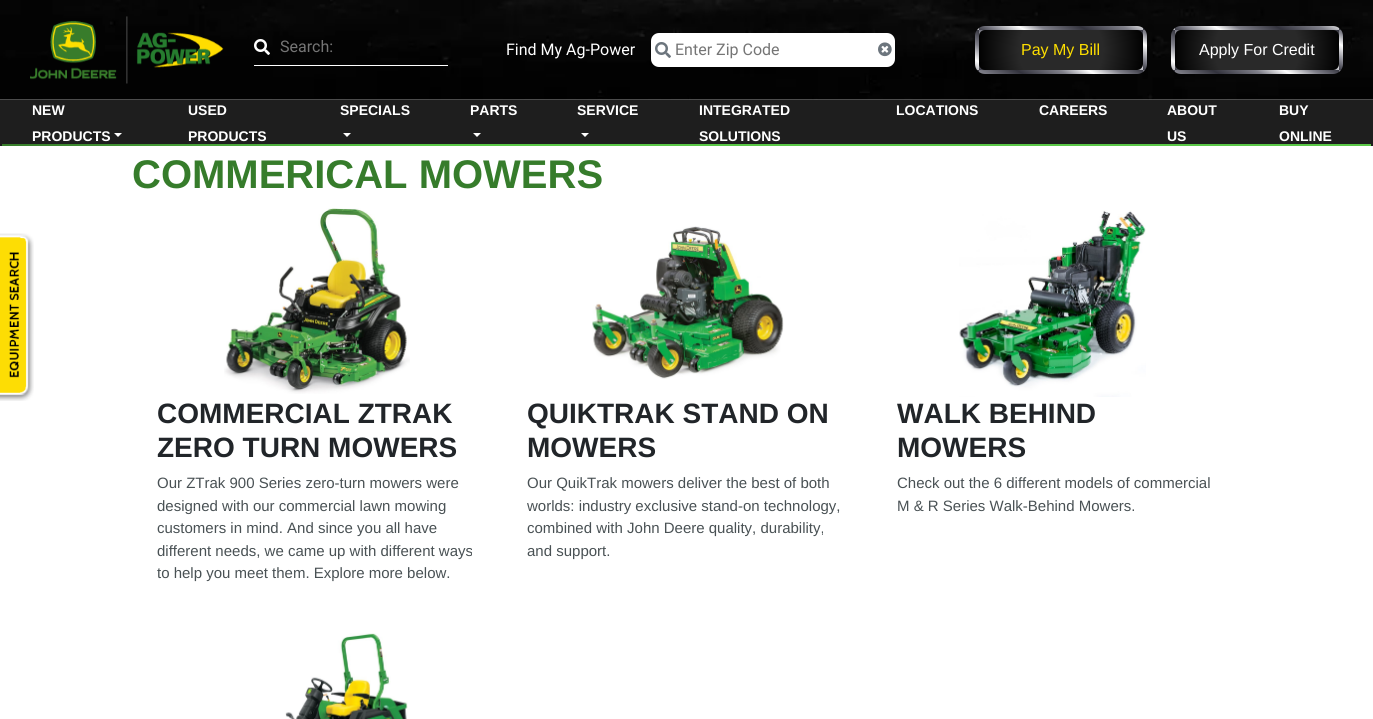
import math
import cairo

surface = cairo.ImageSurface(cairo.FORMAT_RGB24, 1373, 719)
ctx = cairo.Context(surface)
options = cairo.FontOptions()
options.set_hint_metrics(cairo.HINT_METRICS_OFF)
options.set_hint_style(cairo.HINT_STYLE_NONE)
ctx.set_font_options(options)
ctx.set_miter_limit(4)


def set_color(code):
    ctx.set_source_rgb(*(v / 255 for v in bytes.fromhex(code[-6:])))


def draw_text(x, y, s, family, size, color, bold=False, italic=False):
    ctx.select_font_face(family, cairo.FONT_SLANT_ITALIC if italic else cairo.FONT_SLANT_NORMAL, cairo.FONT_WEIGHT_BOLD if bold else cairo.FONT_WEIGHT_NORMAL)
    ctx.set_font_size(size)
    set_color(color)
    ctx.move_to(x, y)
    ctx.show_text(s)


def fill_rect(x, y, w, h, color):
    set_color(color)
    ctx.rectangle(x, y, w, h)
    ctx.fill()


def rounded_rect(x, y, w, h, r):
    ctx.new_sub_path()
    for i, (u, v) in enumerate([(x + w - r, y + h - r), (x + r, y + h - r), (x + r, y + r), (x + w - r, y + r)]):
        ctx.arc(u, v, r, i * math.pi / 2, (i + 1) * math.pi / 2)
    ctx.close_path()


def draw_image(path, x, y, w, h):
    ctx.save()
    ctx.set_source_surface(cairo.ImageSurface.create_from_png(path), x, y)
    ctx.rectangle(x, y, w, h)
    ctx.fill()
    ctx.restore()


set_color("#ffffff")
ctx.paint()
draw_image("assets/img1.png", 0, 233, 34, 168)
draw_image("assets/img2.png", 0, 0, 1373, 100)
draw_image("assets/img3.png", 30, 16, 194, 68)
fill_rect(254, 65, 194, 1, "#ffffff")
draw_image("assets/img4.png", 254, 39, 16, 16)
draw_text(280, 52, "Search:", "Roboto", 16, "#757575")
draw_text(506, 55, "Find My Ag-Power", "Roboto", 16, "#ffffff")
rounded_rect(651, 33, 244, 34, 8)
ctx.fill()
draw_image("assets/img5.png", 655, 42, 16, 16)
draw_text(675, 55, "Enter Zip Code", "Roboto", 16, "#757575")
draw_image("assets/img6.png", 878, 42, 14, 15)
ctx.save()
rounded_rect(975, 26, 172, 48, 10)
ctx.clip()
gradient = cairo.LinearGradient(926, -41, 868, 61)
gradient.add_color_stop_rgba(0, 0.2, 0.2, 0.239, 1)
gradient.add_color_stop_rgba(0.12, 0.502, 0.502, 0.541, 1)
gradient.add_color_stop_rgba(0.24, 1, 1, 1, 1)
gradient.add_color_stop_rgba(0.36, 0.502, 0.502, 0.541, 1)
gradient.add_color_stop_rgba(0.54, 0.2, 0.2, 0.239, 1)
gradient.add_color_stop_rgba(0.71, 0.502, 0.502, 0.541, 1)
gradient.add_color_stop_rgba(0.8, 1, 1, 1, 1)
gradient.add_color_stop_rgba(0.92, 0.502, 0.502, 0.541, 1)
gradient.add_color_stop_rgba(1, 0.2, 0.2, 0.239, 1)
ctx.set_source(gradient)
ctx.rectangle(975, 28, 4, 2)
ctx.fill()
gradient = cairo.LinearGradient(1090, -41, 1032, 61)
gradient.add_color_stop_rgba(0, 0.2, 0.2, 0.239, 1)
gradient.add_color_stop_rgba(0.12, 0.502, 0.502, 0.541, 1)
gradient.add_color_stop_rgba(0.24, 1, 1, 1, 1)
gradient.add_color_stop_rgba(0.36, 0.502, 0.502, 0.541, 1)
gradient.add_color_stop_rgba(0.54, 0.2, 0.2, 0.239, 1)
gradient.add_color_stop_rgba(0.71, 0.502, 0.502, 0.541, 1)
gradient.add_color_stop_rgba(0.8, 1, 1, 1, 1)
gradient.add_color_stop_rgba(0.92, 0.502, 0.502, 0.541, 1)
gradient.add_color_stop_rgba(1, 0.2, 0.2, 0.239, 1)
ctx.set_source(gradient)
ctx.rectangle(979, 26, 164, 4)
ctx.fill()
gradient = cairo.LinearGradient(1254, -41, 1196, 61)
gradient.add_color_stop_rgba(0, 0.2, 0.2, 0.239, 1)
gradient.add_color_stop_rgba(0.12, 0.502, 0.502, 0.541, 1)
gradient.add_color_stop_rgba(0.24, 1, 1, 1, 1)
gradient.add_color_stop_rgba(0.36, 0.502, 0.502, 0.541, 1)
gradient.add_color_stop_rgba(0.54, 0.2, 0.2, 0.239, 1)
gradient.add_color_stop_rgba(0.71, 0.502, 0.502, 0.541, 1)
gradient.add_color_stop_rgba(0.8, 1, 1, 1, 1)
gradient.add_color_stop_rgba(0.92, 0.502, 0.502, 0.541, 1)
gradient.add_color_stop_rgba(1, 0.2, 0.2, 0.239, 1)
ctx.set_source(gradient)
ctx.rectangle(1143, 28, 4, 2)
ctx.fill()
gradient = cairo.LinearGradient(926, -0.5, 868, 101)
gradient.add_color_stop_rgba(0, 0.2, 0.2, 0.239, 1)
gradient.add_color_stop_rgba(0.12, 0.502, 0.502, 0.541, 1)
gradient.add_color_stop_rgba(0.24, 1, 1, 1, 1)
gradient.add_color_stop_rgba(0.36, 0.502, 0.502, 0.541, 1)
gradient.add_color_stop_rgba(0.54, 0.2, 0.2, 0.239, 1)
gradient.add_color_stop_rgba(0.71, 0.502, 0.502, 0.541, 1)
gradient.add_color_stop_rgba(0.8, 1, 1, 1, 1)
gradient.add_color_stop_rgba(0.92, 0.502, 0.502, 0.541, 1)
gradient.add_color_stop_rgba(1, 0.2, 0.2, 0.239, 1)
ctx.set_source(gradient)
ctx.rectangle(975, 30, 4, 40)
ctx.fill()
ctx.restore()
gradient = cairo.LinearGradient(1090, -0.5, 1032, 101)
gradient.add_color_stop_rgba(0, 0.2, 0.2, 0.239, 1)
gradient.add_color_stop_rgba(0.12, 0.502, 0.502, 0.541, 1)
gradient.add_color_stop_rgba(0.24, 1, 1, 1, 1)
gradient.add_color_stop_rgba(0.36, 0.502, 0.502, 0.541, 1)
gradient.add_color_stop_rgba(0.54, 0.2, 0.2, 0.239, 1)
gradient.add_color_stop_rgba(0.71, 0.502, 0.502, 0.541, 1)
gradient.add_color_stop_rgba(0.8, 1, 1, 1, 1)
gradient.add_color_stop_rgba(0.92, 0.502, 0.502, 0.541, 1)
gradient.add_color_stop_rgba(1, 0.2, 0.2, 0.239, 1)
ctx.set_source(gradient)
ctx.rectangle(979, 30, 164, 40)
ctx.fill()
ctx.save()
rounded_rect(975, 26, 172, 48, 10)
ctx.clip()
gradient = cairo.LinearGradient(1254, -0.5, 1196, 101)
gradient.add_color_stop_rgba(0, 0.2, 0.2, 0.239, 1)
gradient.add_color_stop_rgba(0.12, 0.502, 0.502, 0.541, 1)
gradient.add_color_stop_rgba(0.24, 1, 1, 1, 1)
gradient.add_color_stop_rgba(0.36, 0.502, 0.502, 0.541, 1)
gradient.add_color_stop_rgba(0.54, 0.2, 0.2, 0.239, 1)
gradient.add_color_stop_rgba(0.71, 0.502, 0.502, 0.541, 1)
gradient.add_color_stop_rgba(0.8, 1, 1, 1, 1)
gradient.add_color_stop_rgba(0.92, 0.502, 0.502, 0.541, 1)
gradient.add_color_stop_rgba(1, 0.2, 0.2, 0.239, 1)
ctx.set_source(gradient)
ctx.rectangle(1143, 30, 4, 40)
ctx.fill()
gradient = cairo.LinearGradient(926, 39, 868, 141)
gradient.add_color_stop_rgba(0, 0.2, 0.2, 0.239, 1)
gradient.add_color_stop_rgba(0.12, 0.502, 0.502, 0.541, 1)
gradient.add_color_stop_rgba(0.24, 1, 1, 1, 1)
gradient.add_color_stop_rgba(0.36, 0.502, 0.502, 0.541, 1)
gradient.add_color_stop_rgba(0.54, 0.2, 0.2, 0.239, 1)
gradient.add_color_stop_rgba(0.71, 0.502, 0.502, 0.541, 1)
gradient.add_color_stop_rgba(0.8, 1, 1, 1, 1)
gradient.add_color_stop_rgba(0.92, 0.502, 0.502, 0.541, 1)
gradient.add_color_stop_rgba(1, 0.2, 0.2, 0.239, 1)
ctx.set_source(gradient)
ctx.rectangle(975, 70, 4, 2)
ctx.fill()
gradient = cairo.LinearGradient(1090, 39, 1032, 141)
gradient.add_color_stop_rgba(0, 0.2, 0.2, 0.239, 1)
gradient.add_color_stop_rgba(0.12, 0.502, 0.502, 0.541, 1)
gradient.add_color_stop_rgba(0.24, 1, 1, 1, 1)
gradient.add_color_stop_rgba(0.36, 0.502, 0.502, 0.541, 1)
gradient.add_color_stop_rgba(0.54, 0.2, 0.2, 0.239, 1)
gradient.add_color_stop_rgba(0.71, 0.502, 0.502, 0.541, 1)
gradient.add_color_stop_rgba(0.8, 1, 1, 1, 1)
gradient.add_color_stop_rgba(0.92, 0.502, 0.502, 0.541, 1)
gradient.add_color_stop_rgba(1, 0.2, 0.2, 0.239, 1)
ctx.set_source(gradient)
ctx.rectangle(979, 70, 164, 4)
ctx.fill()
gradient = cairo.LinearGradient(1254, 39, 1196, 141)
gradient.add_color_stop_rgba(0, 0.2, 0.2, 0.239, 1)
gradient.add_color_stop_rgba(0.12, 0.502, 0.502, 0.541, 1)
gradient.add_color_stop_rgba(0.24, 1, 1, 1, 1)
gradient.add_color_stop_rgba(0.36, 0.502, 0.502, 0.541, 1)
gradient.add_color_stop_rgba(0.54, 0.2, 0.2, 0.239, 1)
gradient.add_color_stop_rgba(0.71, 0.502, 0.502, 0.541, 1)
gradient.add_color_stop_rgba(0.8, 1, 1, 1, 1)
gradient.add_color_stop_rgba(0.92, 0.502, 0.502, 0.541, 1)
gradient.add_color_stop_rgba(1, 0.2, 0.2, 0.239, 1)
ctx.set_source(gradient)
ctx.rectangle(1143, 70, 4, 2)
ctx.fill()
ctx.restore()
gradient = cairo.RadialGradient(1061, 50, 0, 1061, 50, 84)
gradient.add_color_stop_rgba(0.5, 0.161, 0.161, 0.161, 1)
gradient.add_color_stop_rgba(1, 0, 0, 0, 1)
ctx.set_source(gradient)
rounded_rect(979, 30, 164, 40, 6)
ctx.fill()
draw_text(1021, 55, "Pay My Bill", "Liberation Sans", 16, "#fdde00")
ctx.save()
rounded_rect(1171, 26, 172, 48, 10)
ctx.clip()
gradient = cairo.LinearGradient(1122, -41, 1064, 61)
gradient.add_color_stop_rgba(0, 0.2, 0.2, 0.239, 1)
gradient.add_color_stop_rgba(0.12, 0.502, 0.502, 0.541, 1)
gradient.add_color_stop_rgba(0.24, 1, 1, 1, 1)
gradient.add_color_stop_rgba(0.36, 0.502, 0.502, 0.541, 1)
gradient.add_color_stop_rgba(0.54, 0.2, 0.2, 0.239, 1)
gradient.add_color_stop_rgba(0.71, 0.502, 0.502, 0.541, 1)
gradient.add_color_stop_rgba(0.8, 1, 1, 1, 1)
gradient.add_color_stop_rgba(0.92, 0.502, 0.502, 0.541, 1)
gradient.add_color_stop_rgba(1, 0.2, 0.2, 0.239, 1)
ctx.set_source(gradient)
ctx.rectangle(1171, 28, 4, 2)
ctx.fill()
gradient = cairo.LinearGradient(1286, -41, 1228, 61)
gradient.add_color_stop_rgba(0, 0.2, 0.2, 0.239, 1)
gradient.add_color_stop_rgba(0.12, 0.502, 0.502, 0.541, 1)
gradient.add_color_stop_rgba(0.24, 1, 1, 1, 1)
gradient.add_color_stop_rgba(0.36, 0.502, 0.502, 0.541, 1)
gradient.add_color_stop_rgba(0.54, 0.2, 0.2, 0.239, 1)
gradient.add_color_stop_rgba(0.71, 0.502, 0.502, 0.541, 1)
gradient.add_color_stop_rgba(0.8, 1, 1, 1, 1)
gradient.add_color_stop_rgba(0.92, 0.502, 0.502, 0.541, 1)
gradient.add_color_stop_rgba(1, 0.2, 0.2, 0.239, 1)
ctx.set_source(gradient)
ctx.rectangle(1175, 26, 164, 4)
ctx.fill()
gradient = cairo.LinearGradient(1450, -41, 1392, 61)
gradient.add_color_stop_rgba(0, 0.2, 0.2, 0.239, 1)
gradient.add_color_stop_rgba(0.12, 0.502, 0.502, 0.541, 1)
gradient.add_color_stop_rgba(0.24, 1, 1, 1, 1)
gradient.add_color_stop_rgba(0.36, 0.502, 0.502, 0.541, 1)
gradient.add_color_stop_rgba(0.54, 0.2, 0.2, 0.239, 1)
gradient.add_color_stop_rgba(0.71, 0.502, 0.502, 0.541, 1)
gradient.add_color_stop_rgba(0.8, 1, 1, 1, 1)
gradient.add_color_stop_rgba(0.92, 0.502, 0.502, 0.541, 1)
gradient.add_color_stop_rgba(1, 0.2, 0.2, 0.239, 1)
ctx.set_source(gradient)
ctx.rectangle(1339, 28, 4, 2)
ctx.fill()
gradient = cairo.LinearGradient(1122, -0.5, 1064, 101)
gradient.add_color_stop_rgba(0, 0.2, 0.2, 0.239, 1)
gradient.add_color_stop_rgba(0.12, 0.502, 0.502, 0.541, 1)
gradient.add_color_stop_rgba(0.24, 1, 1, 1, 1)
gradient.add_color_stop_rgba(0.36, 0.502, 0.502, 0.541, 1)
gradient.add_color_stop_rgba(0.54, 0.2, 0.2, 0.239, 1)
gradient.add_color_stop_rgba(0.71, 0.502, 0.502, 0.541, 1)
gradient.add_color_stop_rgba(0.8, 1, 1, 1, 1)
gradient.add_color_stop_rgba(0.92, 0.502, 0.502, 0.541, 1)
gradient.add_color_stop_rgba(1, 0.2, 0.2, 0.239, 1)
ctx.set_source(gradient)
ctx.rectangle(1171, 30, 4, 40)
ctx.fill()
ctx.restore()
gradient = cairo.LinearGradient(1286, -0.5, 1228, 101)
gradient.add_color_stop_rgba(0, 0.2, 0.2, 0.239, 1)
gradient.add_color_stop_rgba(0.12, 0.502, 0.502, 0.541, 1)
gradient.add_color_stop_rgba(0.24, 1, 1, 1, 1)
gradient.add_color_stop_rgba(0.36, 0.502, 0.502, 0.541, 1)
gradient.add_color_stop_rgba(0.54, 0.2, 0.2, 0.239, 1)
gradient.add_color_stop_rgba(0.71, 0.502, 0.502, 0.541, 1)
gradient.add_color_stop_rgba(0.8, 1, 1, 1, 1)
gradient.add_color_stop_rgba(0.92, 0.502, 0.502, 0.541, 1)
gradient.add_color_stop_rgba(1, 0.2, 0.2, 0.239, 1)
ctx.set_source(gradient)
ctx.rectangle(1175, 30, 164, 40)
ctx.fill()
ctx.save()
rounded_rect(1171, 26, 172, 48, 10)
ctx.clip()
gradient = cairo.LinearGradient(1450, -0.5, 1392, 101)
gradient.add_color_stop_rgba(0, 0.2, 0.2, 0.239, 1)
gradient.add_color_stop_rgba(0.12, 0.502, 0.502, 0.541, 1)
gradient.add_color_stop_rgba(0.24, 1, 1, 1, 1)
gradient.add_color_stop_rgba(0.36, 0.502, 0.502, 0.541, 1)
gradient.add_color_stop_rgba(0.54, 0.2, 0.2, 0.239, 1)
gradient.add_color_stop_rgba(0.71, 0.502, 0.502, 0.541, 1)
gradient.add_color_stop_rgba(0.8, 1, 1, 1, 1)
gradient.add_color_stop_rgba(0.92, 0.502, 0.502, 0.541, 1)
gradient.add_color_stop_rgba(1, 0.2, 0.2, 0.239, 1)
ctx.set_source(gradient)
ctx.rectangle(1339, 30, 4, 40)
ctx.fill()
gradient = cairo.LinearGradient(1122, 39, 1064, 141)
gradient.add_color_stop_rgba(0, 0.2, 0.2, 0.239, 1)
gradient.add_color_stop_rgba(0.12, 0.502, 0.502, 0.541, 1)
gradient.add_color_stop_rgba(0.24, 1, 1, 1, 1)
gradient.add_color_stop_rgba(0.36, 0.502, 0.502, 0.541, 1)
gradient.add_color_stop_rgba(0.54, 0.2, 0.2, 0.239, 1)
gradient.add_color_stop_rgba(0.71, 0.502, 0.502, 0.541, 1)
gradient.add_color_stop_rgba(0.8, 1, 1, 1, 1)
gradient.add_color_stop_rgba(0.92, 0.502, 0.502, 0.541, 1)
gradient.add_color_stop_rgba(1, 0.2, 0.2, 0.239, 1)
ctx.set_source(gradient)
ctx.rectangle(1171, 70, 4, 2)
ctx.fill()
gradient = cairo.LinearGradient(1286, 39, 1228, 141)
gradient.add_color_stop_rgba(0, 0.2, 0.2, 0.239, 1)
gradient.add_color_stop_rgba(0.12, 0.502, 0.502, 0.541, 1)
gradient.add_color_stop_rgba(0.24, 1, 1, 1, 1)
gradient.add_color_stop_rgba(0.36, 0.502, 0.502, 0.541, 1)
gradient.add_color_stop_rgba(0.54, 0.2, 0.2, 0.239, 1)
gradient.add_color_stop_rgba(0.71, 0.502, 0.502, 0.541, 1)
gradient.add_color_stop_rgba(0.8, 1, 1, 1, 1)
gradient.add_color_stop_rgba(0.92, 0.502, 0.502, 0.541, 1)
gradient.add_color_stop_rgba(1, 0.2, 0.2, 0.239, 1)
ctx.set_source(gradient)
ctx.rectangle(1175, 70, 164, 4)
ctx.fill()
gradient = cairo.LinearGradient(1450, 39, 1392, 141)
gradient.add_color_stop_rgba(0, 0.2, 0.2, 0.239, 1)
gradient.add_color_stop_rgba(0.12, 0.502, 0.502, 0.541, 1)
gradient.add_color_stop_rgba(0.24, 1, 1, 1, 1)
gradient.add_color_stop_rgba(0.36, 0.502, 0.502, 0.541, 1)
gradient.add_color_stop_rgba(0.54, 0.2, 0.2, 0.239, 1)
gradient.add_color_stop_rgba(0.71, 0.502, 0.502, 0.541, 1)
gradient.add_color_stop_rgba(0.8, 1, 1, 1, 1)
gradient.add_color_stop_rgba(0.92, 0.502, 0.502, 0.541, 1)
gradient.add_color_stop_rgba(1, 0.2, 0.2, 0.239, 1)
ctx.set_source(gradient)
ctx.rectangle(1339, 70, 4, 2)
ctx.fill()
ctx.restore()
gradient = cairo.RadialGradient(1257, 50, 0, 1257, 50, 84)
gradient.add_color_stop_rgba(0.5, 0.161, 0.161, 0.161, 1)
gradient.add_color_stop_rgba(1, 0, 0, 0, 1)
ctx.set_source(gradient)
rounded_rect(1175, 30, 164, 40, 6)
ctx.fill()
draw_text(1199, 55, "Apply For Credit", "Liberation Sans", 16, "#ffffff")
fill_rect(0, 100, 1373, 46, "#1e1e1e")
draw_image("assets/img7.png", 2, 144, 1369, 2)
draw_text(32, 115, "NEW", "Liberation Sans", 14, "#ffffff", bold=True)
draw_text(32, 141, "PRODUCTS", "Liberation Sans", 14, "#ffffff", bold=True)
ctx.new_path()
ctx.move_to(114, 133)
ctx.line_to(122, 133)
ctx.line_to(118, 137)
ctx.close_path()
ctx.fill()
draw_text(188, 115, "USED", "Liberation Sans", 14, "#ffffff", bold=True)
draw_text(188, 141, "PRODUCTS", "Liberation Sans", 14, "#ffffff", bold=True)
draw_text(340, 115, "SPECIALS", "Liberation Sans", 14, "#ffffff", bold=True)
ctx.new_path()
ctx.move_to(343, 133)
ctx.line_to(351, 133)
ctx.line_to(347, 137)
ctx.close_path()
ctx.fill()
draw_text(470, 115, "PARTS", "Liberation Sans", 14, "#ffffff", bold=True)
ctx.new_path()
ctx.move_to(473, 133)
ctx.line_to(481, 133)
ctx.line_to(477, 137)
ctx.close_path()
ctx.fill()
draw_text(577, 115, "SERVICE", "Liberation Sans", 14, "#ffffff", bold=True)
ctx.new_path()
ctx.move_to(581, 133)
ctx.line_to(589, 133)
ctx.line_to(585, 137)
ctx.close_path()
ctx.fill()
draw_text(699, 115, "INTEGRATED", "Liberation Sans", 14, "#ffffff", bold=True)
draw_text(699, 141, "SOLUTIONS", "Liberation Sans", 14, "#ffffff", bold=True)
draw_text(896, 115, "LOCATIONS", "Liberation Sans", 14, "#ffffff", bold=True)
draw_text(1039, 115, "CAREERS", "Liberation Sans", 14, "#ffffff", bold=True)
draw_text(1167, 115, "ABOUT", "Liberation Sans", 14, "#ffffff", bold=True)
draw_text(1167, 141, "US", "Liberation Sans", 14, "#ffffff", bold=True)
draw_text(1279, 115, "BUY", "Liberation Sans", 14, "#ffffff", bold=True)
draw_text(1279, 141, "ONLINE", "Liberation Sans", 14, "#ffffff", bold=True)
draw_text(132, 188, "COMMERICAL MOWERS", "Liberation Sans", 40, "#367c2b", bold=True)
draw_image("assets/img8.png", 224, 208, 186, 186)
draw_text(157, 423, "COMMERCIAL ZTRAK", "Liberation Sans", 28, "#212529", bold=True)
draw_text(157, 457, "ZERO TURN MOWERS", "Liberation Sans", 28, "#212529", bold=True)
draw_text(157, 488, "Our ZTrak 900 Series zero-turn mowers were", "Liberation Sans", 15, "#495154")
draw_text(157, 511, "designed with our commercial lawn mowing", "Liberation Sans", 15, "#495154")
draw_text(157, 533, "customers in mind. And since you all have", "Liberation Sans", 15, "#495154")
draw_text(157, 556, "different needs, we came up with different ways", "Liberation Sans", 15, "#495154")
draw_text(157, 578, "to help you meet them. Explore more below.", "Liberation Sans", 15, "#495154")
draw_image("assets/img9.png", 592, 226, 192, 153)
draw_text(527, 423, "QUIKTRAK STAND ON", "Liberation Sans", 28, "#212529", bold=True)
draw_text(527, 457, "MOWERS", "Liberation Sans", 28, "#212529", bold=True)
draw_text(527, 488, "Our QuikTrak mowers deliver the best of both", "Liberation Sans", 15, "#495154")
draw_text(527, 511, "worlds: industry exclusive stand-on technology,", "Liberation Sans", 15, "#495154")
draw_text(527, 533, "combined with John Deere quality, durability,", "Liberation Sans", 15, "#495154")
draw_text(527, 556, "and support.", "Liberation Sans", 15, "#495154")
draw_image("assets/img10.png", 959, 210, 187, 187)
draw_text(897, 423, "WALK BEHIND", "Liberation Sans", 28, "#212529", bold=True)
draw_text(897, 457, "MOWERS", "Liberation Sans", 28, "#212529", bold=True)
draw_text(897, 488, "Check out the 6 different models of commercial", "Liberation Sans", 15, "#495154")
draw_text(897, 511, "M & R Series Walk-Behind Mowers.", "Liberation Sans", 15, "#495154")
draw_image("assets/img11.png", 285, 633, 123, 86)
surface.write_to_png("output.png")
